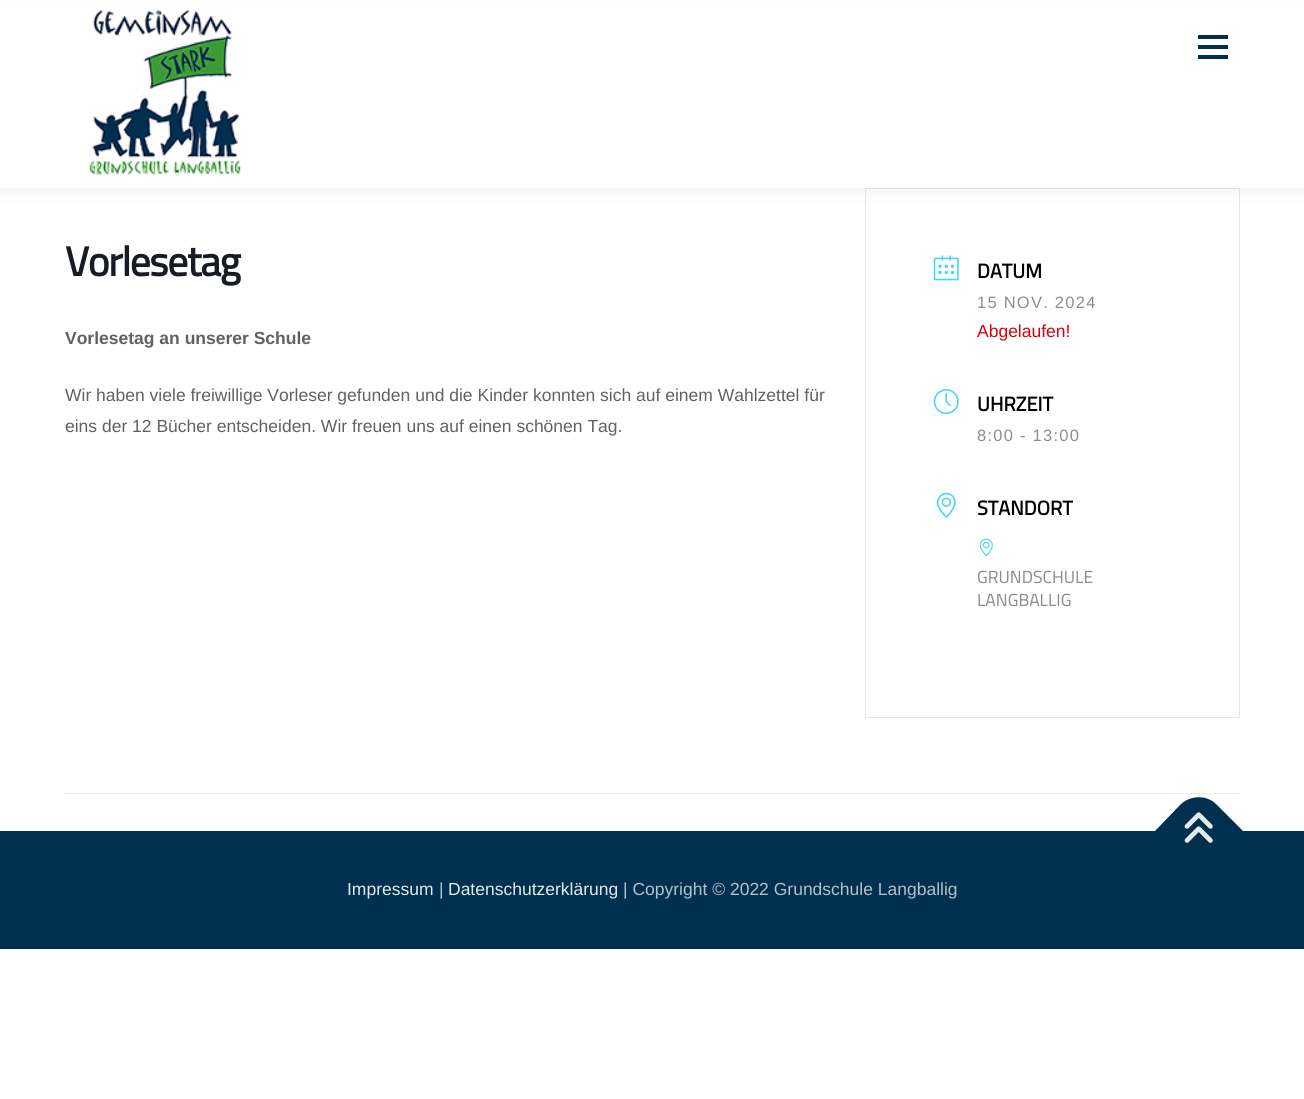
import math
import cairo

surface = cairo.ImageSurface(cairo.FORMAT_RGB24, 1304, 1099)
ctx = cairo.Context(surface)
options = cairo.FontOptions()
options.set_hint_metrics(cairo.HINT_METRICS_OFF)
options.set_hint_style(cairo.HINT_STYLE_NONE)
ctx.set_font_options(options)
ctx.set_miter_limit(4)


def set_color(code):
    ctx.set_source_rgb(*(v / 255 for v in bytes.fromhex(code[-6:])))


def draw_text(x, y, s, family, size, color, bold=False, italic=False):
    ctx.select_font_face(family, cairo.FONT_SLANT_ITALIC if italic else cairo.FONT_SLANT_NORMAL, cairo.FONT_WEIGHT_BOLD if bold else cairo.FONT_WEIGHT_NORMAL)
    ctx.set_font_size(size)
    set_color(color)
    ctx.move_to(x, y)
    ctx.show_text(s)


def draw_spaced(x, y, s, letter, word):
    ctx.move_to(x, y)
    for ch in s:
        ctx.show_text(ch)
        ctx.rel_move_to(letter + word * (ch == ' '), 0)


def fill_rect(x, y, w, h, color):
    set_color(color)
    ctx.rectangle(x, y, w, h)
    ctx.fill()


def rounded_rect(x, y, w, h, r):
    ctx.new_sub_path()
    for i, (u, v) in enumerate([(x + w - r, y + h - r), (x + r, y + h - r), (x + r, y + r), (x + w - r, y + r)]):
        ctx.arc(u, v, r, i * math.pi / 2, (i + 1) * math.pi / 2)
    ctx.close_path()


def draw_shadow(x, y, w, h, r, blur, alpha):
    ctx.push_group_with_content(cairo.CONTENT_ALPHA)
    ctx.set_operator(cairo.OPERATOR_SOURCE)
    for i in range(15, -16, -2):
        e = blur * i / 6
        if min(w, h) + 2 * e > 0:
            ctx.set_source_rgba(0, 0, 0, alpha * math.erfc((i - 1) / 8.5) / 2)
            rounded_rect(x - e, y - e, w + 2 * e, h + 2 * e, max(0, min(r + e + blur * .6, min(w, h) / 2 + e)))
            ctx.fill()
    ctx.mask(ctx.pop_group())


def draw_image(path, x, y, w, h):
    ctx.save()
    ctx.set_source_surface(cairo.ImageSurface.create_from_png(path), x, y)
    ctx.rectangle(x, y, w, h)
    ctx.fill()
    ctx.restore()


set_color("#ffffff")
ctx.paint()
ctx.rectangle(865.5, 188.5, 374, 529)
set_color("#e6e7e8")
ctx.set_line_width(1)
ctx.stroke()
set_color("#323232")
draw_shadow(0, 6, 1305, 188, 0, 6, 0.06)
fill_rect(0, 1, 1304, 187, "#ffffff")
draw_image("assets/img1.png", 88, 9, 154, 167)
fill_rect(1198, 45, 30, 4, "#012f50")
fill_rect(1198, 35, 30, 4, "#012f50")
fill_rect(1198, 55, 30, 4, "#012f50")
ctx.select_font_face("Cairo", cairo.FONT_SLANT_NORMAL, cairo.FONT_WEIGHT_BOLD)
ctx.set_font_size(41.25)
set_color("#171c24")
draw_spaced(65, 276, "Vorlesetag", -1.25, 0)
draw_text(65, 344, "Vorlesetag an unserer Schule", "Liberation Sans", 17.5, "#616161", bold=True)
draw_text(65, 401, "Wir haben viele freiwillige Vorleser gefunden und die Kinder konnten sich auf einem Wahlzettel für", "Liberation Sans", 17.5, "#616161")
draw_text(65, 432, "eins der 12 Bücher entscheiden. Wir freuen uns auf einen schönen Tag.", "Liberation Sans", 17.5, "#616161")
draw_image("assets/img2.png", 933, 255, 26, 26)
draw_text(977, 278, "DATUM", "Cairo", 20, "#000000", bold=True)
ctx.select_font_face("Liberation Sans")
ctx.set_font_size(16.5)
set_color("#8d8d8d")
draw_spaced(977, 308, "15 NOV. 2024", 1.25, 0)
draw_text(977, 337, "Abgelaufen!", "Liberation Sans", 17.5, "#d8000c")
draw_image("assets/img3.png", 933, 389, 26, 26)
draw_text(977, 411, "UHRZEIT", "Cairo", 20, "#000000", bold=True)
ctx.select_font_face("Liberation Sans")
ctx.set_font_size(16.5)
set_color("#8d8d8d")
draw_spaced(977, 441, "8:00 - 13:00", 1.25, 0)
draw_image("assets/img4.png", 936, 492, 20, 26)
draw_text(977, 515, "STANDORT", "Cairo", 20, "#000000", bold=True)
draw_image("assets/img5.png", 979, 538, 14, 19)
draw_text(977, 583, "GRUNDSCHULE", "Cairo", 17.5, "#8d8d8d")
draw_text(977, 606, "LANGBALLIG", "Cairo", 17.5, "#8d8d8d")
fill_rect(65, 793, 1175, 1, "#e9e9e9")
fill_rect(0, 831, 1304, 118, "#00304f")
ctx.new_path()
ctx.move_to(1155, 831)
ctx.line_to(1181, 804)
ctx.curve_to(1191, 795, 1207, 795, 1216, 804)
ctx.line_to(1243, 831)
ctx.line_to(1199, 875)
ctx.close_path()
ctx.fill()
draw_image("assets/img6.png", 1184, 812, 29, 31)
draw_text(347, 895, "Impressum", "Liberation Sans", 17.5, "#e6eaed")
draw_text(439, 895, "|", "Liberation Sans", 17.5, "#b3c1ca")
draw_text(448, 895, "Datenschutzerklärung", "Liberation Sans", 17.5, "#e6eaed")
draw_text(623, 895, "| Copyright © 2022 Grundschule Langballig", "Liberation Sans", 17.5, "#b3c1ca")
surface.write_to_png("output.png")
